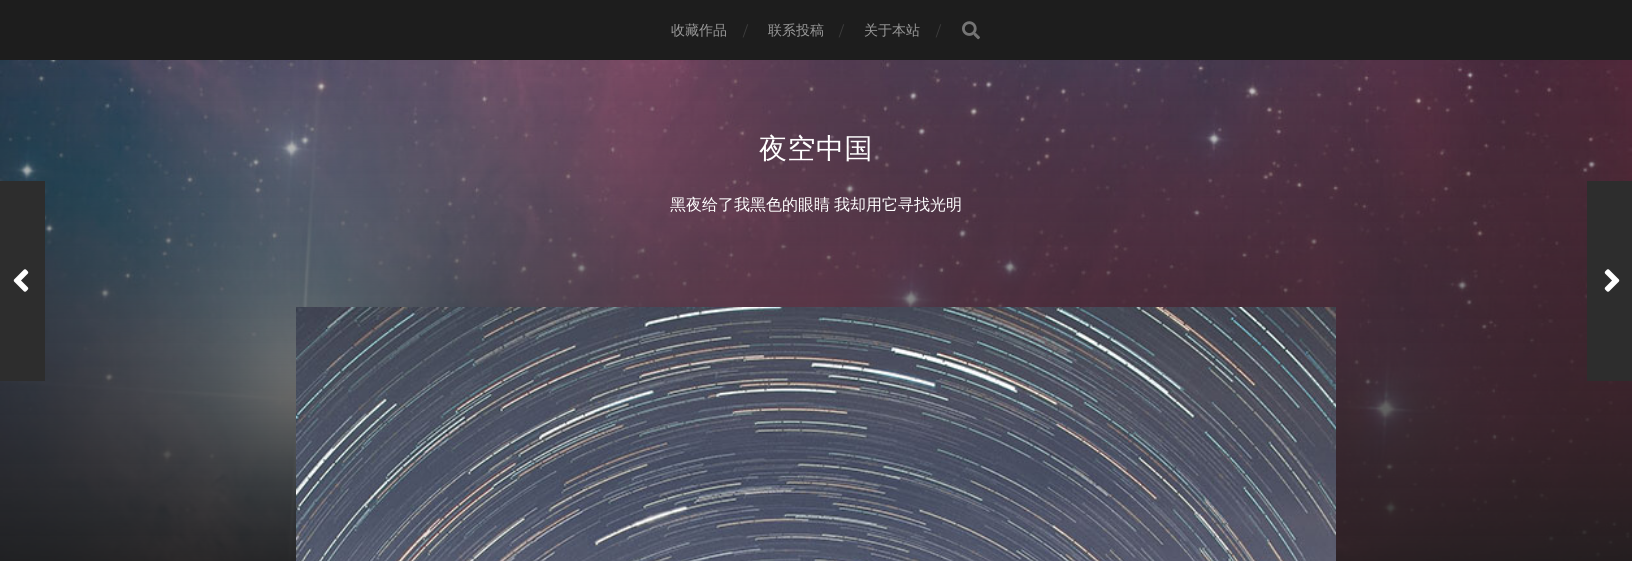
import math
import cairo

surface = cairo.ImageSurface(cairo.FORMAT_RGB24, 1632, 561)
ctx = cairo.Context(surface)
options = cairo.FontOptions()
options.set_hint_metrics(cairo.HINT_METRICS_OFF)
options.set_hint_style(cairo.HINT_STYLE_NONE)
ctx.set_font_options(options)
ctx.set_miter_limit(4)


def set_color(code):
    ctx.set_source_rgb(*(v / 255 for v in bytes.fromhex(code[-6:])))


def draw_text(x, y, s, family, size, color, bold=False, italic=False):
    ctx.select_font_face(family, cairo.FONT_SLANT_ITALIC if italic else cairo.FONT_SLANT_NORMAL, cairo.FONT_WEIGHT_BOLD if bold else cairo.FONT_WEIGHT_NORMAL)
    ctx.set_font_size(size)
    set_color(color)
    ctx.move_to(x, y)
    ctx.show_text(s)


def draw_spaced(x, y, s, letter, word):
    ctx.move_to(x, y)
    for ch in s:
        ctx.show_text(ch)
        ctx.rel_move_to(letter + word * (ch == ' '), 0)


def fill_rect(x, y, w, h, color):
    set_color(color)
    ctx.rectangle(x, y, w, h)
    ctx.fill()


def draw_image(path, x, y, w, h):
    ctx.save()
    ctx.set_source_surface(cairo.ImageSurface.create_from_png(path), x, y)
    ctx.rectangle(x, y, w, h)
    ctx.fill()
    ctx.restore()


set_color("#1d1d1d")
ctx.paint()
draw_text(671, 35, "收藏作品", "WenQuanYi Zen Hei Medium", 14, "#999999")
draw_text(743, 36, "/", "Montserrat", 14, "#3d3d3d")
draw_text(768, 35, "联系投稿", "WenQuanYi Zen Hei Medium", 14, "#999999")
draw_text(839, 36, "/", "Montserrat", 14, "#3d3d3d")
draw_text(864, 35, "关于本站", "WenQuanYi Zen Hei Medium", 14, "#999999")
draw_text(936, 36, "/", "Montserrat", 14, "#3d3d3d")
draw_image("assets/img1.png", 962, 21, 18, 19)
draw_image("assets/img2.png", 0, 60, 1632, 501)
ctx.select_font_face("WenQuanYi Zen Hei Medium")
ctx.set_font_size(28)
set_color("#ffffff")
draw_spaced(759, 158, "夜空中国", 0.5, 0)
draw_text(670, 210, "黑夜给了我黑色的眼睛", "WenQuanYi Zen Hei Medium", 16, "#ffffff")
draw_text(834, 210, "我却用它寻找光明", "WenQuanYi Zen Hei Medium", 16, "#ffffff")
fill_rect(0, 181, 45, 200, "#2d2d2d")
draw_image("assets/img3.png", 13, 269, 16, 23)
fill_rect(1587, 181, 45, 200, "#2d2d2d")
draw_image("assets/img4.png", 1604, 269, 16, 23)
draw_image("assets/img5.png", 296, 307, 1040, 254)
surface.write_to_png("output.png")
